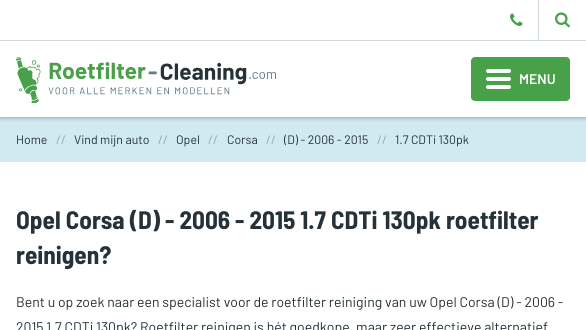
import math
import cairo

surface = cairo.ImageSurface(cairo.FORMAT_RGB24, 586, 330)
ctx = cairo.Context(surface)
options = cairo.FontOptions()
options.set_hint_metrics(cairo.HINT_METRICS_OFF)
options.set_hint_style(cairo.HINT_STYLE_NONE)
ctx.set_font_options(options)
ctx.set_miter_limit(4)


def set_color(code):
    ctx.set_source_rgb(*(v / 255 for v in bytes.fromhex(code[-6:])))


def draw_text(x, y, s, family, size, color, bold=False, italic=False):
    ctx.select_font_face(family, cairo.FONT_SLANT_ITALIC if italic else cairo.FONT_SLANT_NORMAL, cairo.FONT_WEIGHT_BOLD if bold else cairo.FONT_WEIGHT_NORMAL)
    ctx.set_font_size(size)
    set_color(color)
    ctx.move_to(x, y)
    ctx.show_text(s)


def fill_rect(x, y, w, h, color):
    set_color(color)
    ctx.rectangle(x, y, w, h)
    ctx.fill()


def rounded_rect(x, y, w, h, r):
    ctx.new_sub_path()
    for i, (u, v) in enumerate([(x + w - r, y + h - r), (x + r, y + h - r), (x + r, y + r), (x + w - r, y + r)]):
        ctx.arc(u, v, r, i * math.pi / 2, (i + 1) * math.pi / 2)
    ctx.close_path()


def draw_shadow(x, y, w, h, r, blur, alpha):
    ctx.push_group_with_content(cairo.CONTENT_ALPHA)
    ctx.set_operator(cairo.OPERATOR_SOURCE)
    for i in range(15, -16, -2):
        e = blur * i / 6
        if min(w, h) + 2 * e > 0:
            ctx.set_source_rgba(0, 0, 0, alpha * math.erfc((i - 1) / 8.5) / 2)
            rounded_rect(x - e, y - e, w + 2 * e, h + 2 * e, max(0, min(r + e + blur * .6, min(w, h) / 2 + e)))
            ctx.fill()
    ctx.mask(ctx.pop_group())


def draw_image(path, x, y, w, h):
    ctx.save()
    ctx.set_source_surface(cairo.ImageSurface.create_from_png(path), x, y)
    ctx.rectangle(x, y, w, h)
    ctx.fill()
    ctx.restore()


set_color("#ffffff")
ctx.paint()
fill_rect(0, 117, 586, 45, "#d1eaf2")
ctx.save()
ctx.rectangle(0, 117, 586, 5)
ctx.clip()
set_color("#000000")
draw_shadow(0, 41, 586, 76, 0, 3, 0.4)
ctx.restore()
fill_rect(0, 35, 586, 5, "#ffffff")
fill_rect(0, 40, 586, 1, "#cfd8dc")
draw_image("assets/img1.png", 510, 13, 13, 13)
fill_rect(538, 0, 1, 40, "#cfd8dc")
draw_image("assets/img2.png", 555, 12, 15, 16)
draw_image("assets/img3.png", 16, 57, 260, 46)
set_color("#48a048")
rounded_rect(471, 57, 99, 44, 4)
ctx.fill()
set_color("#ffffff")
rounded_rect(486, 77, 25, 4, 2)
ctx.fill()
rounded_rect(486, 69, 25, 4, 2)
ctx.fill()
rounded_rect(486, 85, 25, 4, 2)
ctx.fill()
draw_text(519, 84, "MENU", "Barlow SemiBold", 14, "#ffffff")
draw_text(16, 144, "Home", "Barlow", 12.25, "#263238")
draw_text(56, 144, "//", "Barlow", 12.25, "#90a4ae")
draw_text(74, 144, "Vind mijn auto", "Barlow", 12.25, "#263238")
draw_text(158, 144, "//", "Barlow", 12.25, "#90a4ae")
draw_text(176, 144, "Opel", "Barlow", 12.25, "#263238")
draw_text(208, 144, "//", "Barlow", 12.25, "#90a4ae")
draw_text(227, 144, "Corsa", "Barlow", 12.25, "#263238")
draw_text(266, 144, "//", "Barlow", 12.25, "#90a4ae")
draw_text(284, 144, "(D) - 2006 - 2015", "Barlow", 12.25, "#263238")
draw_text(377, 144, "//", "Barlow", 12.25, "#90a4ae")
draw_text(395, 144, "1.7 CDTi 130pk", "Barlow", 12.25, "#263238")
draw_text(16, 229, "Opel Corsa (D) - 2006 - 2015 1.7 CDTi 130pk roetfilter", "Barlow Semi Condensed", 25.2, "#263238", bold=True)
draw_text(16, 264, "reinigen?", "Barlow Semi Condensed", 25.2, "#263238", bold=True)
draw_text(16, 307, "Bent u op zoek naar een specialist voor de roetfilter reiniging van uw Opel Corsa (D) - 2006 -", "Barlow", 14, "#263238")
draw_text(16, 332, "2015 1.7 CDTi 130pk? Roetfilter reinigen is hét goedkope, maar zeer effectieve alternatief", "Barlow", 14, "#263238")
surface.write_to_png("output.png")
